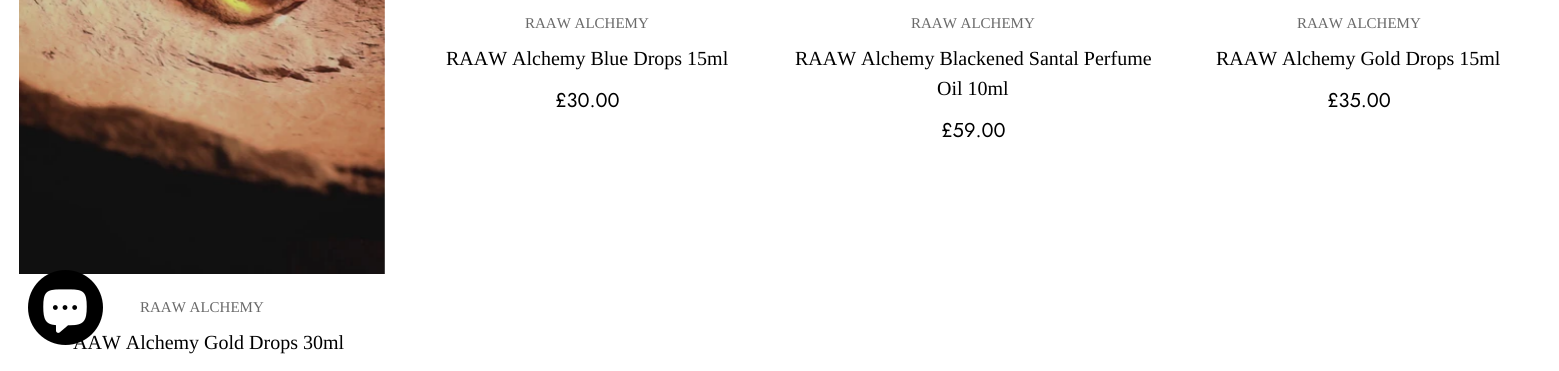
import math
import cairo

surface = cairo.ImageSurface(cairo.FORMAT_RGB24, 1559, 371)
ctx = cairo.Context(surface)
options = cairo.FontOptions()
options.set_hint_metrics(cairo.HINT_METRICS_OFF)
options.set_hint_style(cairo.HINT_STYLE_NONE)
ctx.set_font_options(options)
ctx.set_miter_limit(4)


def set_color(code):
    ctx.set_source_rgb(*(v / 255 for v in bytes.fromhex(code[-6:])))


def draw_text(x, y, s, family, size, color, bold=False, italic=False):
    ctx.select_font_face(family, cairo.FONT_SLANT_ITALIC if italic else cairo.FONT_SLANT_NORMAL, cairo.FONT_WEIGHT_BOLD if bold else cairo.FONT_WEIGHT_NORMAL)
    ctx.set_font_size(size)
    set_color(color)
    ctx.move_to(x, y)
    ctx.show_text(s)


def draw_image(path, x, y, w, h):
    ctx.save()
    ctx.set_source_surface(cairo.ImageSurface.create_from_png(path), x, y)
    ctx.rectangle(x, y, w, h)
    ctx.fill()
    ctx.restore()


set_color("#ffffff")
ctx.paint()
draw_image("assets/img2.png", 19, 0, 366, 274)
set_color("#000000")
ctx.arc(65.5, 307.5, 37.5, 0, 2 * math.pi)
ctx.fill()
draw_image("assets/img1.png", 43, 289, 44, 44)
draw_text(525, 28, "RAAW ALCHEMY", "Liberation Serif", 15, "#696969")
draw_text(446, 65, "RAAW Alchemy Blue Drops 15ml", "Liberation Serif", 20, "#000000")
draw_text(555, 107, "£30.00", "Jost", 20, "#000000")
draw_text(911, 28, "RAAW ALCHEMY", "Liberation Serif", 15, "#696969")
draw_text(795, 65, "RAAW Alchemy Blackened Santal Perfume", "Liberation Serif", 20, "#000000")
draw_text(937, 95, "Oil 10ml", "Liberation Serif", 20, "#000000")
draw_text(941, 137, "£59.00", "Jost", 20, "#000000")
draw_text(1297, 28, "RAAW ALCHEMY", "Liberation Serif", 15, "#696969")
draw_text(1216, 65, "RAAW Alchemy Gold Drops 15ml", "Liberation Serif", 20, "#000000")
draw_text(1327, 107, "£35.00", "Jost", 20, "#000000")
draw_text(140, 312, "RAAW ALCHEMY", "Liberation Serif", 15, "#696969")
draw_text(73, 349, "AAW Alchemy Gold Drops 30ml", "Liberation Serif", 20, "#000000")
surface.write_to_png("output.png")
